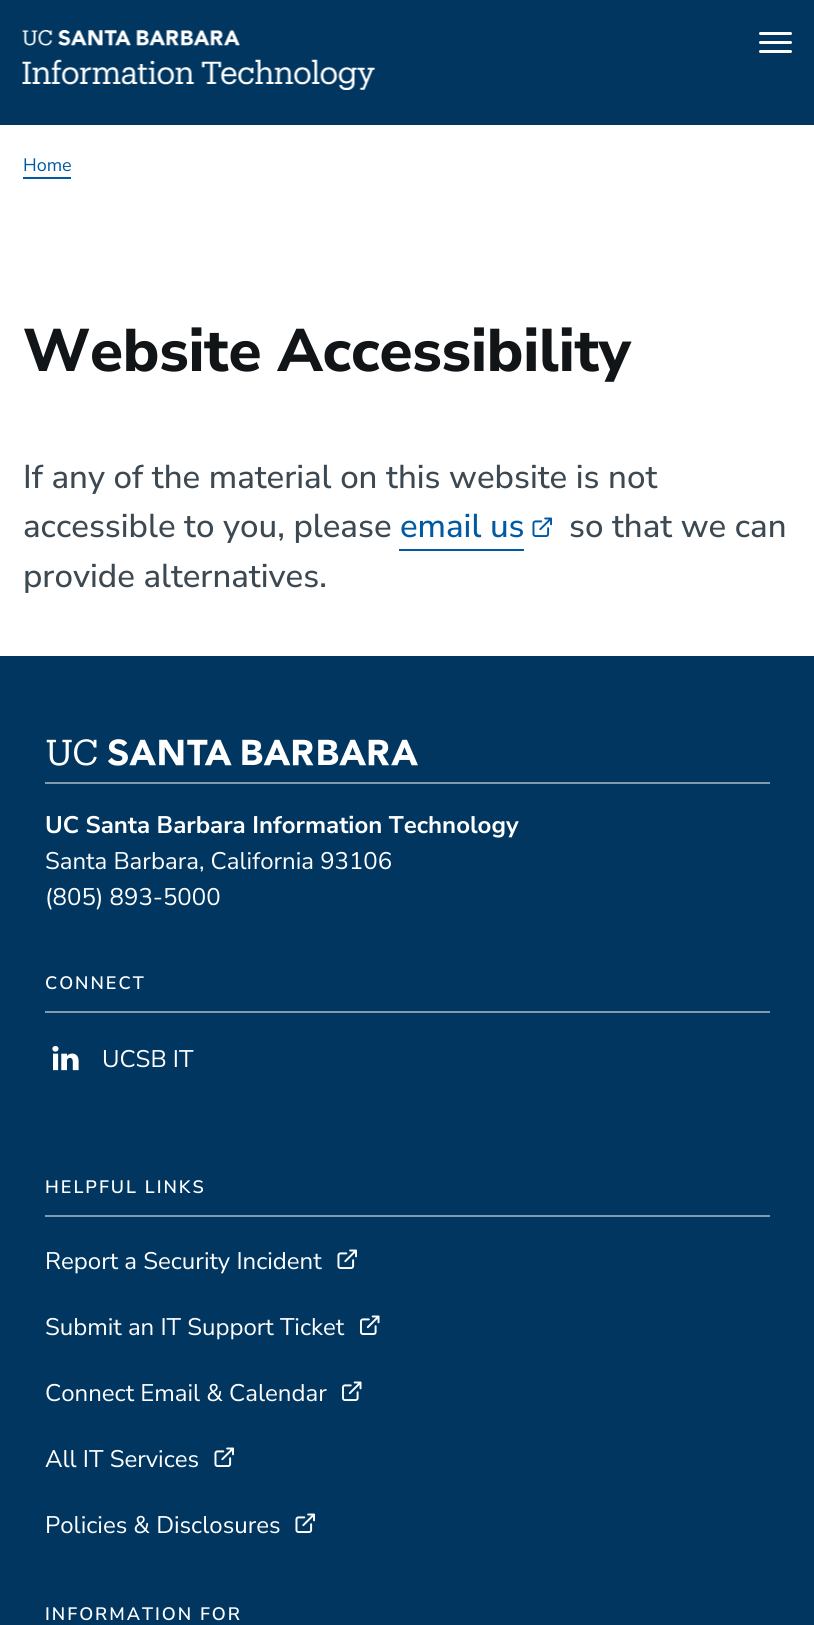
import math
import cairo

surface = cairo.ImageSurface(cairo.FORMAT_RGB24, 814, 1625)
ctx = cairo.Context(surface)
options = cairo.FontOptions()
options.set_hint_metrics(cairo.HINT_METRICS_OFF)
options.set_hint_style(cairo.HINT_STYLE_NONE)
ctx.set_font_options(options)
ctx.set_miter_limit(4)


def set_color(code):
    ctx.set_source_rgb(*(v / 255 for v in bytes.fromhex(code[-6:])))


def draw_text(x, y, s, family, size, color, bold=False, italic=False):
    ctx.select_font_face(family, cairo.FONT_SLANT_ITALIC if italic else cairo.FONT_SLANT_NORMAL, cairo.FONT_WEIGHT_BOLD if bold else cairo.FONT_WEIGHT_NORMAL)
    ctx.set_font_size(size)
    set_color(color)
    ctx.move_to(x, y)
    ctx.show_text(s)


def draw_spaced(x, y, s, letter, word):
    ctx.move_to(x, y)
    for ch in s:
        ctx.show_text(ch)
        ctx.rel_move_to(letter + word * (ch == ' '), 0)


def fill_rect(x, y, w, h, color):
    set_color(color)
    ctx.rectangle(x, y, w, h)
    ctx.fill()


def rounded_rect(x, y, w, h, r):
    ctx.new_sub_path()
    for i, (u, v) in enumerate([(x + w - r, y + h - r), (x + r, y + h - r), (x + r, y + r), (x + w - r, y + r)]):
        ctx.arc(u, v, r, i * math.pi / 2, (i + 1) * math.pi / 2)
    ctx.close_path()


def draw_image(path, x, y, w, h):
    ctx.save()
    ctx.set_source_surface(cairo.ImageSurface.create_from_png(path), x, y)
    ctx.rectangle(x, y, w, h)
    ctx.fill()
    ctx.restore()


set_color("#ffffff")
ctx.paint()
fill_rect(0, 0, 814, 125, "#003660")
draw_image("assets/img1.png", 22, 30, 354, 60)
set_color("#ffffff")
rounded_rect(759, 32, 33, 3, 1.5)
ctx.fill()
rounded_rect(759, 41, 33, 3, 1.5)
ctx.fill()
rounded_rect(759, 50, 33, 3, 1.5)
ctx.fill()
draw_text(23, 171, "Home", "Nunito Sans", 18, "#005aa3")
fill_rect(23, 177, 48, 2, "#005aa3")
ctx.select_font_face("Nunito Sans ExtraBold")
ctx.set_font_size(60)
set_color("#111517")
draw_spaced(23, 371, "Website Accessibility", -0.2, 0)
draw_text(23, 488, "If any of the material on this website is not", "Nunito Sans Medium", 33, "#3d4952")
draw_text(23, 537, "accessible to you, please", "Nunito Sans Medium", 33, "#3d4952")
draw_text(400, 537, "email us", "Nunito Sans Medium", 33, "#005aa3")
fill_rect(399, 549, 125, 2, "#005aa3")
draw_image("assets/img2.png", 532, 517, 20, 20)
draw_text(569, 537, "so that we can", "Nunito Sans Medium", 33, "#3d4952")
draw_text(23, 587, "provide alternatives.", "Nunito Sans Medium", 33, "#3d4952")
fill_rect(0, 656, 814, 969, "#003660")
fill_rect(45, 782, 725, 2, "#809bb0")
draw_image("assets/img3.png", 46, 739, 372, 27)
draw_text(45, 833, "UC Santa Barbara Information Technology", "Nunito Sans", 24, "#ffffff", bold=True)
draw_text(45, 869, "Santa Barbara, California 93106", "Nunito Sans", 24, "#ffffff")
draw_text(45, 905, "(805) 893-5000", "Nunito Sans", 24, "#ffffff")
fill_rect(45, 1011, 725, 2, "#809bb0")
ctx.select_font_face("Nunito Sans SemiBold")
ctx.set_font_size(18)
set_color("#ffffff")
draw_spaced(45, 989, "CONNECT", 2, 0)
draw_image("assets/img4.png", 52, 1046, 27, 25)
draw_text(102, 1067, "UCSB IT", "Nunito Sans", 24, "#ffffff")
fill_rect(45, 1215, 725, 2, "#809bb0")
ctx.select_font_face("Nunito Sans SemiBold")
ctx.set_font_size(18)
set_color("#ffffff")
draw_spaced(45, 1193, "HELPFUL LINKS", 2, 0)
draw_text(45, 1269, "Report a Security Incident", "Nunito Sans", 24, "#ffffff")
draw_image("assets/img5.png", 337, 1249, 20, 20)
draw_text(45, 1335, "Submit an IT Support Ticket", "Nunito Sans", 24, "#ffffff")
draw_image("assets/img6.png", 360, 1315, 20, 20)
draw_text(45, 1401, "Connect Email & Calendar", "Nunito Sans", 24, "#ffffff")
draw_image("assets/img6.png", 342, 1381, 20, 20)
draw_text(45, 1467, "All IT Services", "Nunito Sans", 24, "#ffffff")
draw_image("assets/img5.png", 214, 1447, 20, 20)
draw_text(45, 1533, "Policies & Disclosures", "Nunito Sans", 24, "#ffffff")
draw_image("assets/img5.png", 295, 1513, 20, 20)
ctx.select_font_face("Nunito Sans SemiBold")
ctx.set_font_size(18)
draw_spaced(45, 1620, "INFORMATION FOR", 2, 0)
surface.write_to_png("output.png")
